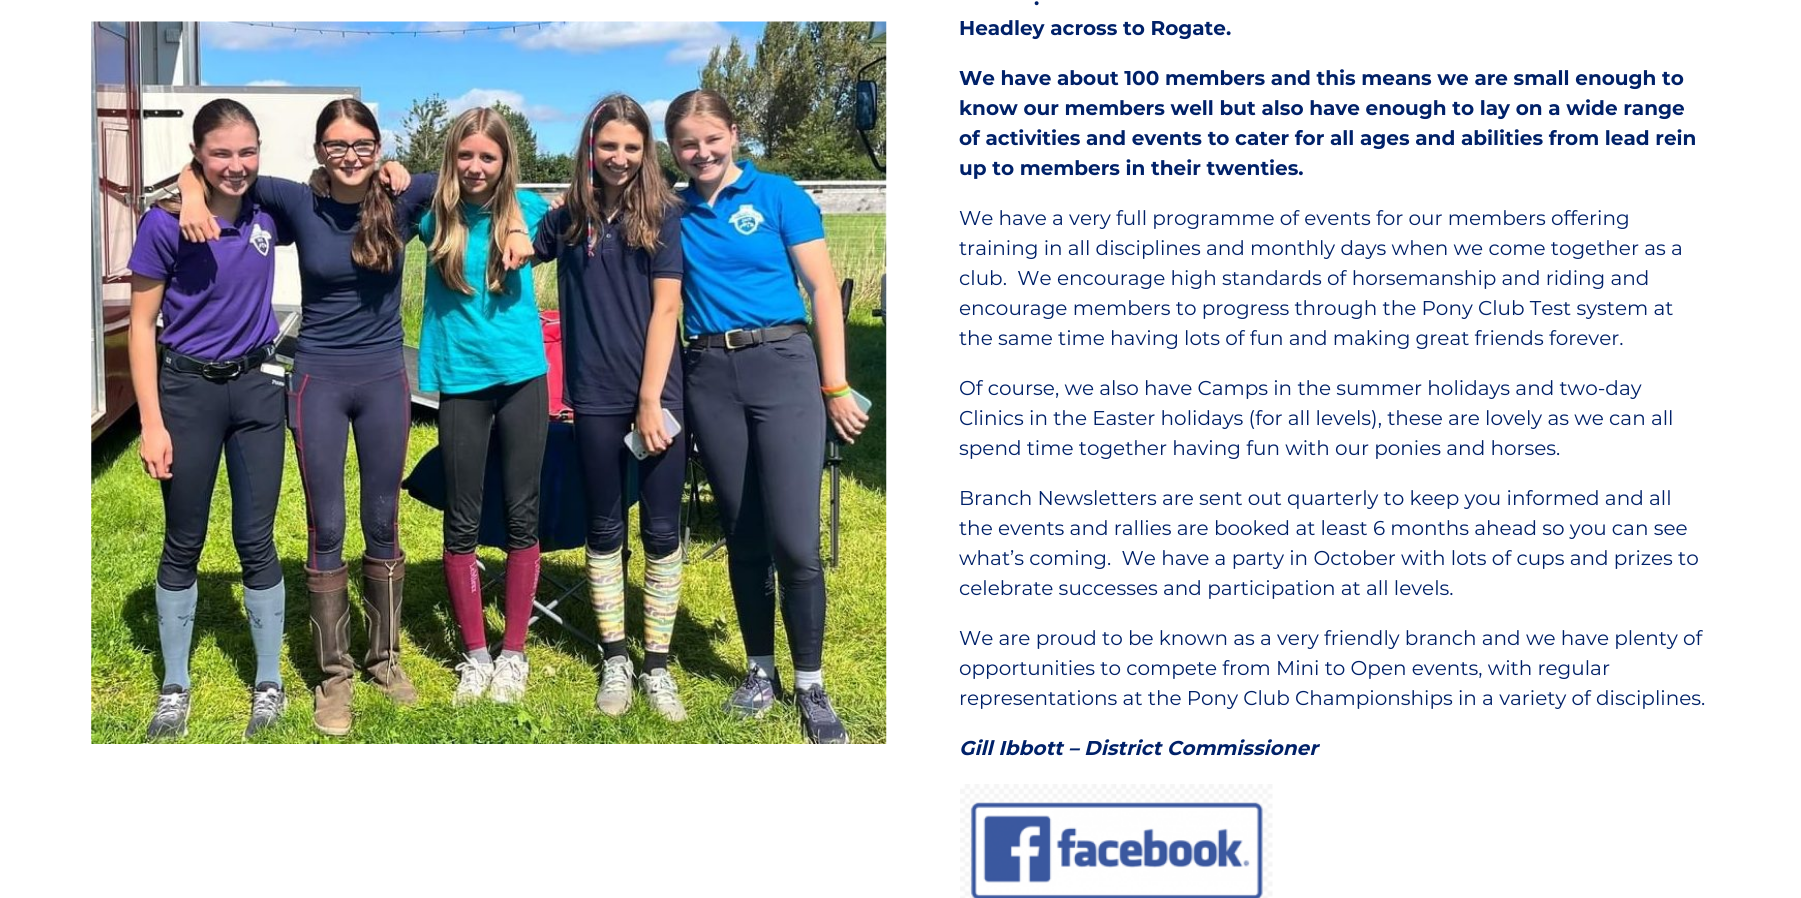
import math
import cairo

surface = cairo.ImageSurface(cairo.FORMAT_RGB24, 1801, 898)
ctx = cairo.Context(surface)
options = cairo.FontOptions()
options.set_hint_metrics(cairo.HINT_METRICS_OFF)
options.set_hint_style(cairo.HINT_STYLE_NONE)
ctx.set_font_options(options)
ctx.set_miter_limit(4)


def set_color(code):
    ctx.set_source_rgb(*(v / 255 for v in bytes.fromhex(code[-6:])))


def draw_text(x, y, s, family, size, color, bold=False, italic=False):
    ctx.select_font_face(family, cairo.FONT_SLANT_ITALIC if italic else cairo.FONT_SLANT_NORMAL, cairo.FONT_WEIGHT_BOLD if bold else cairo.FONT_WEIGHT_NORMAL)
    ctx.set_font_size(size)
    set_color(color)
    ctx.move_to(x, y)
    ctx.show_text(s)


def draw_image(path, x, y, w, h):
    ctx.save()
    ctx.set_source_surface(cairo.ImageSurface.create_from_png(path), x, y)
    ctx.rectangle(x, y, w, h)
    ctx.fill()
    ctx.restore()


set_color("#ffffff")
ctx.paint()
draw_image("assets/img1.png", 91, 21, 796, 723)
draw_text(1034, 5, ".", "Montserrat", 20, "#002169", bold=True)
draw_text(959, 35, "Headley across to Rogate.", "Montserrat", 20, "#002169", bold=True)
draw_text(959, 85, "We have about 100 members and this means we are small enough to", "Montserrat", 20, "#002169", bold=True)
draw_text(959, 115, "know our members well but also have enough to lay on a wide range", "Montserrat", 20, "#002169", bold=True)
draw_text(959, 145, "of activities and events to cater for all ages and abilities from lead rein", "Montserrat", 20, "#002169", bold=True)
draw_text(959, 175, "up to members in their twenties.", "Montserrat", 20, "#002169", bold=True)
draw_text(959, 225, "We have a very full programme of events for our members offering", "Montserrat", 20, "#002169")
draw_text(959, 255, "training in all disciplines and monthly days when we come together as a", "Montserrat", 20, "#002169")
draw_text(959, 285, "club.  We encourage high standards of horsemanship and riding and", "Montserrat", 20, "#002169")
draw_text(959, 315, "encourage members to progress through the Pony Club Test system at", "Montserrat", 20, "#002169")
draw_text(959, 345, "the same time having lots of fun and making great friends forever.", "Montserrat", 20, "#002169")
draw_text(959, 395, "Of course, we also have Camps in the summer holidays and two-day", "Montserrat", 20, "#002169")
draw_text(959, 425, "Clinics in the Easter holidays (for all levels), these are lovely as we can all", "Montserrat", 20, "#002169")
draw_text(959, 455, "spend time together having fun with our ponies and horses.", "Montserrat", 20, "#002169")
draw_text(959, 505, "Branch Newsletters are sent out quarterly to keep you informed and all", "Montserrat", 20, "#002169")
draw_text(959, 535, "the events and rallies are booked at least 6 months ahead so you can see", "Montserrat", 20, "#002169")
draw_text(959, 565, "what’s coming.  We have a party in October with lots of cups and prizes to", "Montserrat", 20, "#002169")
draw_text(959, 595, "celebrate successes and participation at all levels.", "Montserrat", 20, "#002169")
draw_text(959, 645, "We are proud to be known as a very friendly branch and we have plenty of", "Montserrat", 20, "#002169")
draw_text(959, 675, "opportunities to compete from Mini to Open events, with regular", "Montserrat", 20, "#002169")
draw_text(959, 705, "representations at the Pony Club Championships in a variety of disciplines.", "Montserrat", 20, "#002169")
draw_text(959, 755, "Gill Ibbott – District Commissioner", "Montserrat", 20, "#002169", bold=True, italic=True)
draw_image("assets/img2.png", 960, 784, 313, 114)
surface.write_to_png("output.png")
